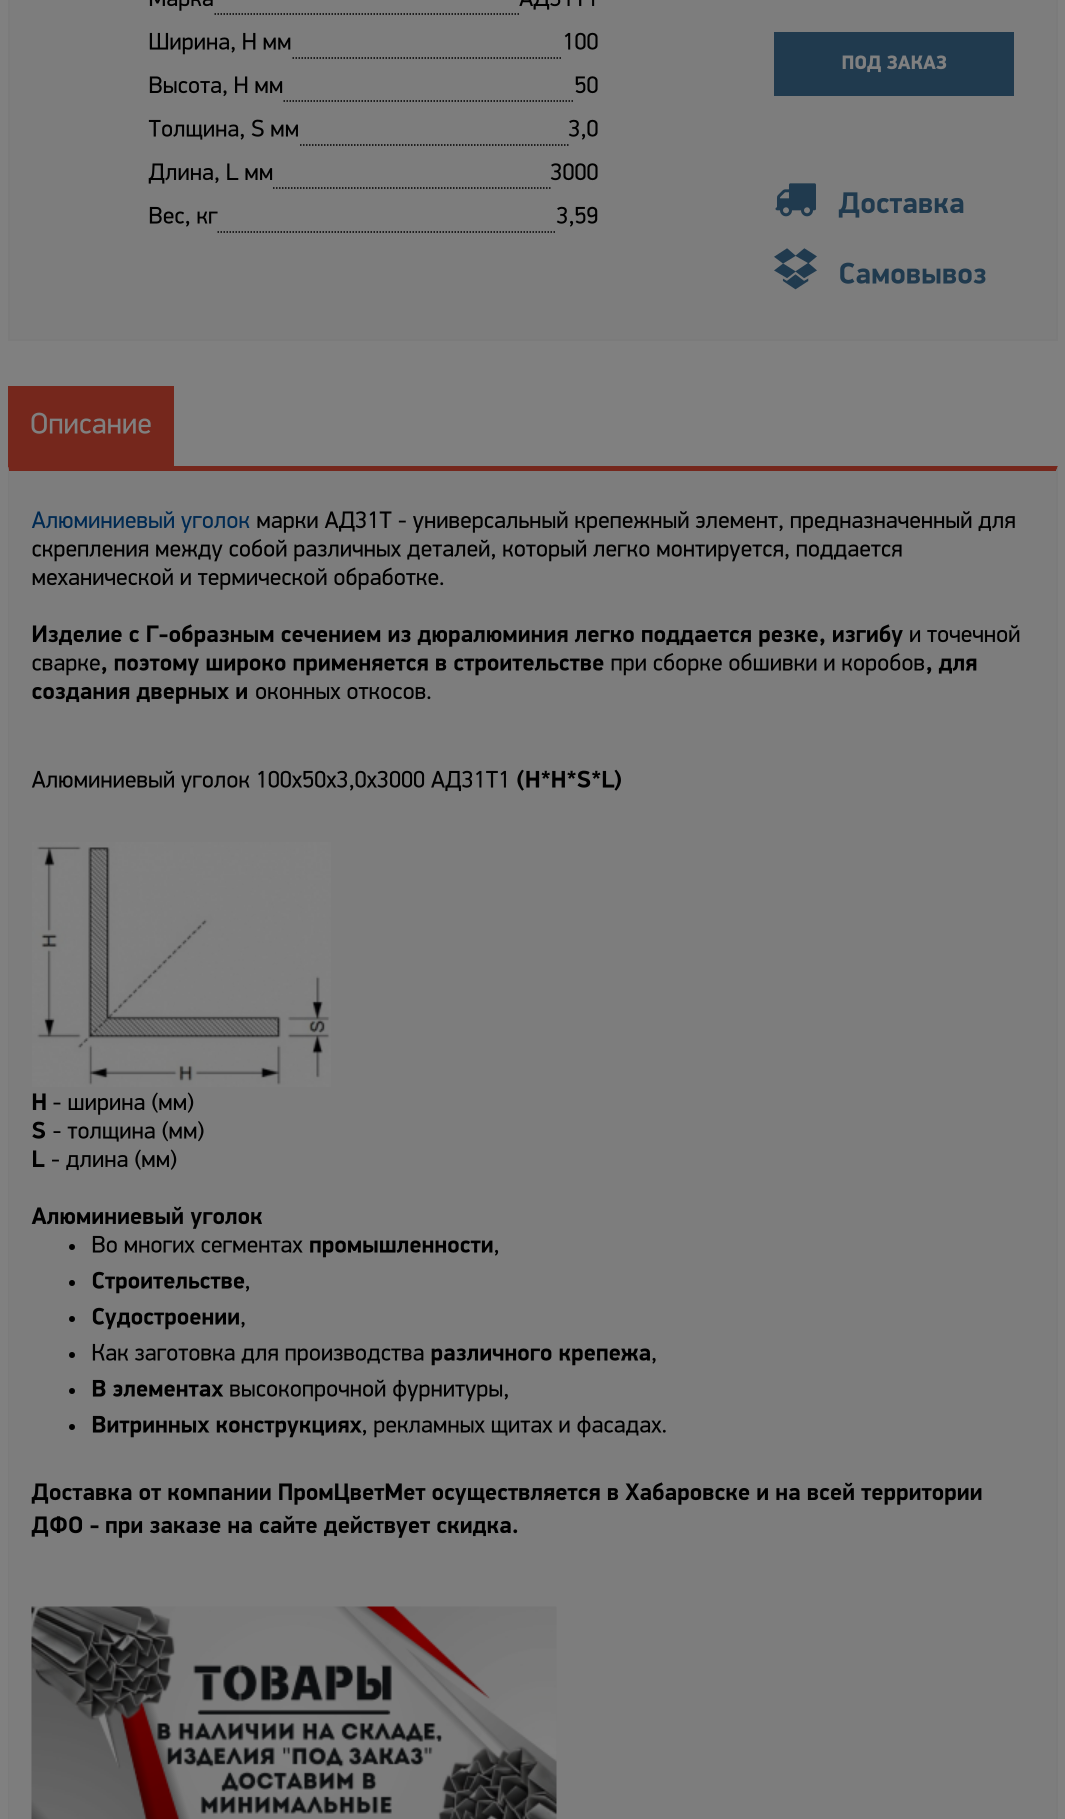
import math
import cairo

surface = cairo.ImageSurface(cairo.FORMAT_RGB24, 1065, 1819)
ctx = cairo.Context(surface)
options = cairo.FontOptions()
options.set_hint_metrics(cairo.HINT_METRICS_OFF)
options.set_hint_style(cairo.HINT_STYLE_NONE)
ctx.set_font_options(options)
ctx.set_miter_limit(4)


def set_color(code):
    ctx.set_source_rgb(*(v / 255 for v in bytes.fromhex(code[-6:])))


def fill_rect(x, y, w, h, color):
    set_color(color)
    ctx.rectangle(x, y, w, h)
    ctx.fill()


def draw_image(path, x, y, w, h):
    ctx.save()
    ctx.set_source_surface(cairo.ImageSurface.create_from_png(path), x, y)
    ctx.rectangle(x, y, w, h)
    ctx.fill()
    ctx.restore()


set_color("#808080")
ctx.paint()
set_color("#7d7d7d")
ctx.rectangle(9, -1, 1048, 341)
ctx.fill_preserve()
set_color("#7b7b7b")
ctx.stroke()
draw_image("assets/img1.png", 149, 0, 64, 11)
draw_image("assets/img2.png", 519, 0, 76, 10)
ctx.new_path()
ctx.move_to(214.5, 14)
ctx.line_to(519, 14)
set_color("#000000")
ctx.set_line_width(1.5)
ctx.set_dash([1.5, 1.5])
ctx.stroke()
draw_image("assets/img3.png", 149, 32, 142, 23)
draw_image("assets/img4.png", 564, 32, 34, 18)
ctx.new_path()
ctx.move_to(292.5, 58)
ctx.line_to(562.5, 58)
ctx.stroke()
draw_image("assets/img5.png", 149, 76, 134, 21)
draw_image("assets/img6.png", 575, 76, 23, 18)
ctx.new_path()
ctx.move_to(283.5, 101)
ctx.line_to(574.5, 101)
ctx.stroke()
draw_image("assets/img7.png", 148, 119, 150, 21)
draw_image("assets/img8.png", 568, 119, 30, 21)
ctx.new_path()
ctx.move_to(300, 145)
ctx.line_to(568.5, 145)
ctx.stroke()
draw_image("assets/img9.png", 148, 163, 125, 21)
draw_image("assets/img10.png", 550, 163, 48, 18)
ctx.new_path()
ctx.move_to(273, 188)
ctx.line_to(550.5, 188)
ctx.stroke()
draw_image("assets/img11.png", 149, 206, 69, 21)
draw_image("assets/img12.png", 556, 206, 42, 21)
ctx.new_path()
ctx.move_to(217.5, 232)
ctx.line_to(556.5, 232)
ctx.stroke()
fill_rect(774, 32, 240, 64, "#203a4e")
draw_image("assets/img13.png", 842, 55, 105, 18)
draw_image("assets/img14.png", 775, 183, 41, 34)
draw_image("assets/img15.png", 838, 192, 126, 26)
draw_image("assets/img16.png", 774, 248, 43, 42)
draw_image("assets/img17.png", 840, 262, 146, 22)
set_color("#75271c")
ctx.new_path()
ctx.move_to(8, 466)
ctx.line_to(1058, 466)
ctx.line_to(1056, 471)
ctx.line_to(9, 471)
ctx.close_path()
ctx.fill()
set_color("#7b7b7b")
ctx.new_path()
ctx.move_to(8, 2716)
ctx.line_to(8, 466)
ctx.line_to(9, 471)
ctx.line_to(9, 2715)
ctx.close_path()
ctx.fill()
fill_rect(8, 386, 166, 81, "#75271c")
draw_image("assets/img18.png", 31, 412, 120, 22)
fill_rect(9, 471, 1047, 1348, "#7d7d7d")
set_color("#7b7b7b")
ctx.new_path()
ctx.move_to(1058, 466)
ctx.line_to(1058, 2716)
ctx.line_to(1056, 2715)
ctx.line_to(1056, 471)
ctx.close_path()
ctx.fill()
draw_image("assets/img19.png", 31, 511, 219, 22)
draw_image("assets/img20.png", 257, 511, 758, 22)
draw_image("assets/img21.png", 32, 539, 870, 23)
draw_image("assets/img22.png", 32, 567, 412, 23)
draw_image("assets/img23.png", 32, 624, 871, 23)
draw_image("assets/img24.png", 910, 625, 110, 18)
draw_image("assets/img25.png", 32, 658, 68, 18)
draw_image("assets/img26.png", 102, 658, 502, 18)
draw_image("assets/img27.png", 611, 653, 314, 23)
draw_image("assets/img28.png", 927, 658, 50, 17)
draw_image("assets/img29.png", 32, 686, 215, 18)
draw_image("assets/img30.png", 256, 687, 175, 13)
draw_image("assets/img31.png", 31, 770, 475, 23)
draw_image("assets/img32.png", 517, 769, 7, 22)
draw_image("assets/img33.png", 526, 770, 89, 18)
draw_image("assets/img34.png", 614, 769, 7, 22)
draw_image("assets/img35.png", 32, 842, 299, 245)
draw_image("assets/img36.png", 32, 1093, 14, 17)
draw_image("assets/img37.png", 53, 1092, 141, 23)
draw_image("assets/img38.png", 32, 1121, 14, 18)
draw_image("assets/img39.png", 53, 1121, 151, 21)
draw_image("assets/img40.png", 33, 1150, 12, 17)
draw_image("assets/img41.png", 52, 1149, 125, 22)
draw_image("assets/img42.png", 31, 1206, 152, 19)
draw_image("assets/img43.png", 190, 1212, 72, 17)
set_color("#000000")
ctx.arc(72, 1247, 3, 0, 2 * math.pi)
ctx.fill()
draw_image("assets/img44.png", 92, 1235, 211, 18)
draw_image("assets/img45.png", 310, 1240, 183, 18)
draw_image("assets/img46.png", 495, 1249, 4, 7)
ctx.arc(72, 1283, 3, 0, 2 * math.pi)
ctx.fill()
draw_image("assets/img47.png", 92, 1271, 153, 23)
draw_image("assets/img46.png", 246, 1285, 4, 7)
ctx.arc(72, 1319, 3, 0, 2 * math.pi)
ctx.fill()
draw_image("assets/img48.png", 92, 1307, 147, 23)
draw_image("assets/img49.png", 241, 1321, 4, 7)
ctx.arc(72, 1355, 3, 0, 2 * math.pi)
ctx.fill()
draw_image("assets/img50.png", 92, 1343, 332, 23)
draw_image("assets/img51.png", 431, 1348, 219, 18)
draw_image("assets/img49.png", 652, 1357, 4, 7)
ctx.arc(72, 1391, 3, 0, 2 * math.pi)
ctx.fill()
draw_image("assets/img52.png", 92, 1379, 132, 18)
draw_image("assets/img53.png", 230, 1379, 278, 23)
ctx.arc(72, 1427, 3, 0, 2 * math.pi)
ctx.fill()
draw_image("assets/img54.png", 92, 1415, 270, 23)
draw_image("assets/img55.png", 363, 1415, 303, 23)
draw_image("assets/img56.png", 31, 1482, 951, 23)
draw_image("assets/img57.png", 31, 1516, 68, 21)
draw_image("assets/img58.png", 106, 1515, 412, 23)
draw_image("assets/img59.png", 31, 1606, 526, 213)
surface.write_to_png("output.png")
